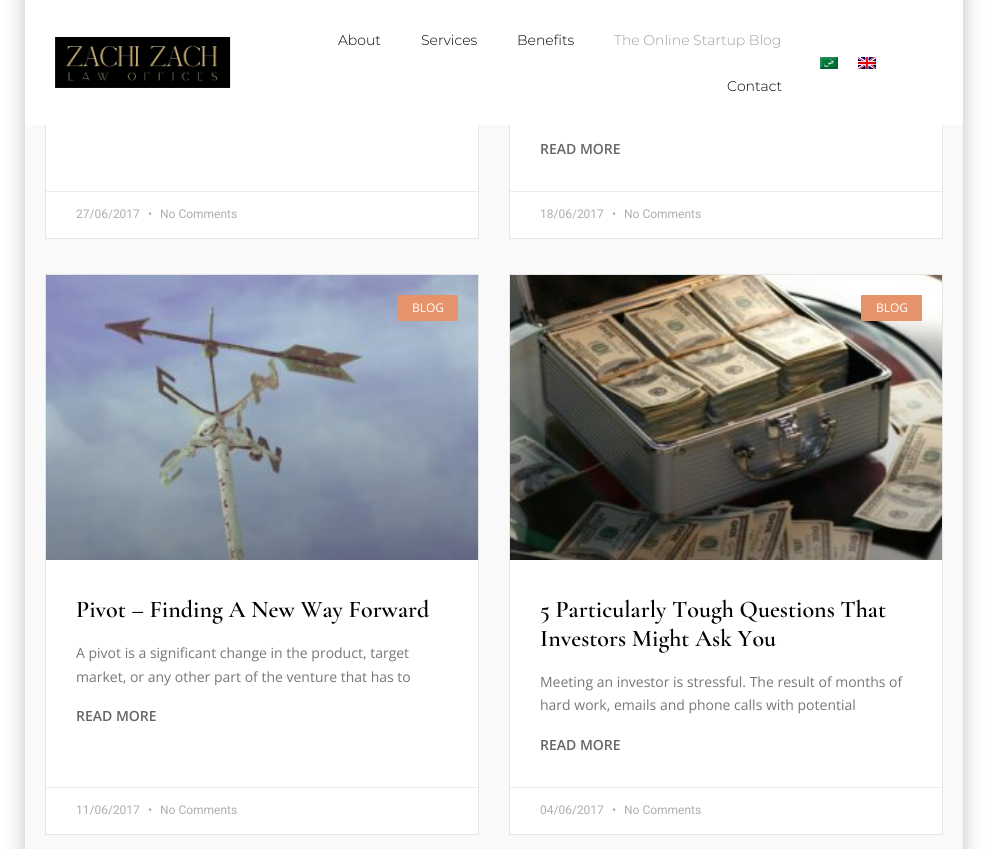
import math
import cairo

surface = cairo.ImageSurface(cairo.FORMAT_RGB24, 988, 849)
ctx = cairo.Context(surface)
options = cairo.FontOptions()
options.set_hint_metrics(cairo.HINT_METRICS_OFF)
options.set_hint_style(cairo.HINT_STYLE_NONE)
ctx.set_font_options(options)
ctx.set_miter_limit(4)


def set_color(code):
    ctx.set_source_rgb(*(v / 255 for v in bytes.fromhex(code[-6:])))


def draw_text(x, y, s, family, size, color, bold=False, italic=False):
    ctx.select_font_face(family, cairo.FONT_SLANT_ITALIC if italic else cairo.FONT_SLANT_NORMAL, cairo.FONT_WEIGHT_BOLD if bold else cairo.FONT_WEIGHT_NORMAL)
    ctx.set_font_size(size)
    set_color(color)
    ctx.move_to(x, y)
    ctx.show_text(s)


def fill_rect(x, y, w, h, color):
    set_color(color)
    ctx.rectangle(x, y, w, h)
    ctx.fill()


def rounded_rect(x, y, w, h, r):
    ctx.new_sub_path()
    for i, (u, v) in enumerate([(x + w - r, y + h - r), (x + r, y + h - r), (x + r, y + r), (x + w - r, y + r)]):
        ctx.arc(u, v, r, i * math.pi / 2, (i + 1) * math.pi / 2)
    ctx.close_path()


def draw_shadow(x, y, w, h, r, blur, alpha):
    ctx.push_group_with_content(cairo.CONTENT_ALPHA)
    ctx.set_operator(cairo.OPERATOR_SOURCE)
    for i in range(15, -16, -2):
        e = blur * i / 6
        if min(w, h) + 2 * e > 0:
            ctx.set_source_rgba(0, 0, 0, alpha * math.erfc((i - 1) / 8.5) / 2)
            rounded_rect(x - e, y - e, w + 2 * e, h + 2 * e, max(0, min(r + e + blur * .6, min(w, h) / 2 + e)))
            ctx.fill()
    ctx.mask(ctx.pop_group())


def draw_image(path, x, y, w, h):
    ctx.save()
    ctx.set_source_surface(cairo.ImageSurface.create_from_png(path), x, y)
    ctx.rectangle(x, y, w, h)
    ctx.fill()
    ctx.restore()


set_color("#ffffff")
ctx.paint()
set_color("#000000")
draw_shadow(25, -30, 938, 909, 0, 10, 0.25)
fill_rect(25, 125, 938, 724, "#f9f9f9")
fill_rect(46, 125, 432, 113, "#ffffff")
ctx.rectangle(45.5, -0.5, 433, 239)
set_color("#e6e6e6")
ctx.set_line_width(1)
ctx.stroke()
fill_rect(510, 125, 432, 113, "#ffffff")
ctx.rectangle(509.5, -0.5, 433, 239)
set_color("#e6e6e6")
ctx.stroke()
fill_rect(25, 0, 938, 125, "#ffffff")
draw_image("assets/img1.png", 55, 37, 176, 51)
draw_text(338, 45, "About", "Montserrat Light", 14, "#000000")
draw_text(421, 45, "Services", "Montserrat Light", 14, "#000000")
draw_text(517, 45, "Benefits", "Montserrat Light", 14, "#000000")
draw_text(614, 45, "The Online Startup Blog", "Montserrat Light", 14, "#9e9e9e")
draw_text(727, 91, "Contact", "Montserrat Light", 14, "#000000")
draw_image("assets/img2.png", 820, 57, 18, 12)
draw_image("assets/img3.png", 858, 57, 18, 12)
fill_rect(46, 191, 432, 1, "#eaeaea")
draw_text(76, 218, "27/06/2017", "Roboto", 12, "#adadad")
draw_text(148, 218, "•", "Roboto", 12, "#adadad")
draw_text(160, 218, "No Comments", "Roboto", 12, "#adadad")
draw_text(540, 154, "READ MORE", "Open Sans SemiBold", 14, "#666666")
fill_rect(510, 191, 432, 1, "#eaeaea")
draw_text(540, 218, "18/06/2017", "Roboto", 12, "#adadad")
draw_text(612, 218, "•", "Roboto", 12, "#adadad")
draw_text(624, 218, "No Comments", "Roboto", 12, "#adadad")
fill_rect(46, 560, 432, 274, "#ffffff")
ctx.rectangle(45.5, 274.5, 433, 560)
set_color("#e6e6e6")
ctx.stroke()
draw_image("assets/img4.png", 46, 275, 432, 285)
set_color("#e6936b")
rounded_rect(397, 295, 61, 26, 1)
ctx.fill()
draw_text(412, 312, "BLOG", "Open Sans", 12, "#ffffff")
draw_text(76, 617, "Pivot – Finding A New Way Forward", "Cormorant Garamond SemiBold", 24, "#000000")
draw_text(76, 658, "A pivot is a significant change in the product, target", "Open Sans", 14, "#777777")
draw_text(76, 682, "market, or any other part of the venture that has to", "Open Sans", 14, "#777777")
draw_text(76, 721, "READ MORE", "Open Sans SemiBold", 14, "#666666")
fill_rect(46, 787, 432, 1, "#eaeaea")
draw_text(76, 814, "11/06/2017", "Roboto", 12, "#adadad")
draw_text(148, 814, "•", "Roboto", 12, "#adadad")
draw_text(160, 814, "No Comments", "Roboto", 12, "#adadad")
fill_rect(510, 560, 432, 274, "#ffffff")
ctx.rectangle(509.5, 274.5, 433, 560)
set_color("#e6e6e6")
ctx.stroke()
draw_image("assets/img5.png", 510, 275, 432, 285)
set_color("#e6936b")
rounded_rect(861, 295, 61, 26, 1)
ctx.fill()
draw_text(876, 312, "BLOG", "Open Sans", 12, "#ffffff")
draw_text(540, 617, "5 Particularly Tough Questions That", "Cormorant Garamond SemiBold", 24, "#000000")
draw_text(540, 646, "Investors Might Ask You", "Cormorant Garamond SemiBold", 24, "#000000")
draw_text(540, 687, "Meeting an investor is stressful. The result of months of", "Open Sans", 14, "#777777")
draw_text(540, 710, "hard work, emails and phone calls with potential", "Open Sans", 14, "#777777")
draw_text(540, 750, "READ MORE", "Open Sans SemiBold", 14, "#666666")
fill_rect(510, 787, 432, 1, "#eaeaea")
draw_text(540, 814, "04/06/2017", "Roboto", 12, "#adadad")
draw_text(612, 814, "•", "Roboto", 12, "#adadad")
draw_text(624, 814, "No Comments", "Roboto", 12, "#adadad")
surface.write_to_png("output.png")
